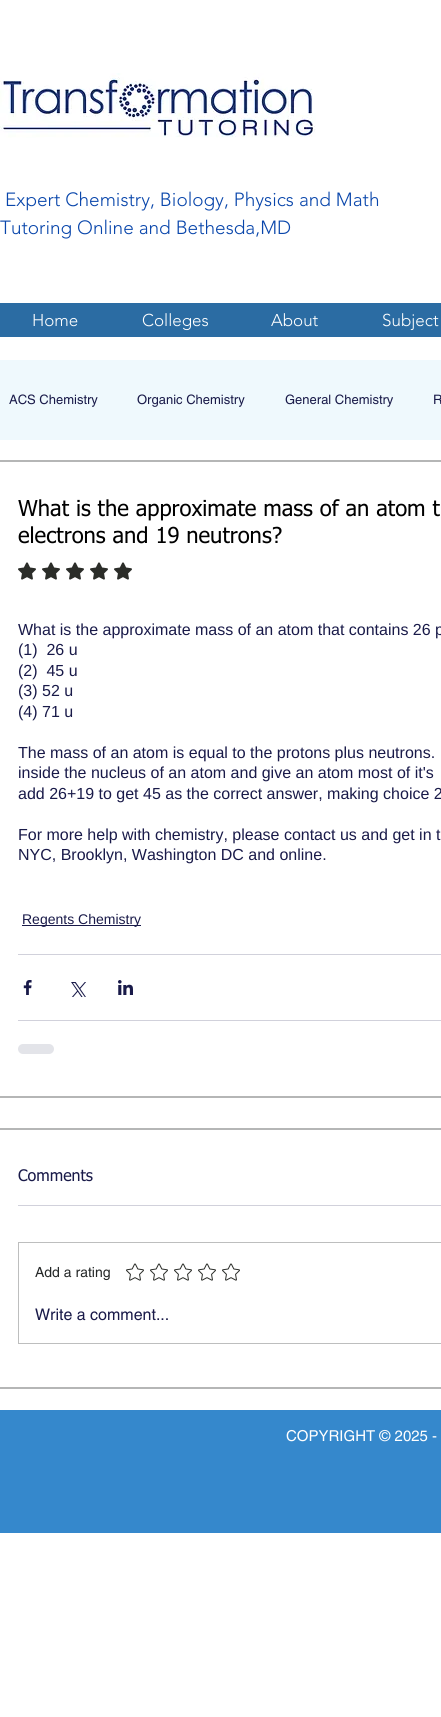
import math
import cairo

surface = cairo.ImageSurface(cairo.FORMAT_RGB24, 441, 1717)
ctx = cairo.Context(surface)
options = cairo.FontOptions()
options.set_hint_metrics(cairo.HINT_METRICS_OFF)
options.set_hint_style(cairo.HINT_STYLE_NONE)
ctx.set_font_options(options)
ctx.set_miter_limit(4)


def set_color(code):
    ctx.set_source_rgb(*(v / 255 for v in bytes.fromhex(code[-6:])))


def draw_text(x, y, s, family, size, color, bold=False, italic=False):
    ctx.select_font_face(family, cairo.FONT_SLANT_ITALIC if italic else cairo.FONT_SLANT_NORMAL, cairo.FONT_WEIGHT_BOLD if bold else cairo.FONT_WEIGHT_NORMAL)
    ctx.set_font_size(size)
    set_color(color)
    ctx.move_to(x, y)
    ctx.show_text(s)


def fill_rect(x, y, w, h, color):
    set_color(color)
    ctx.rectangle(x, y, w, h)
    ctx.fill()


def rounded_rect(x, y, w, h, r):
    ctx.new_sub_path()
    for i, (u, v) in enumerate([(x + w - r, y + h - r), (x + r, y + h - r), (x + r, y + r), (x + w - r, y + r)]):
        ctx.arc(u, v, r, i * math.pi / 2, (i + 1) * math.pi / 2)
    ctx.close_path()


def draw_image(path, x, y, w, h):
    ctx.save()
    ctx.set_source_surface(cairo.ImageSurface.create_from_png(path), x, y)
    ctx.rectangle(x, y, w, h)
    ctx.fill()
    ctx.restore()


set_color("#ffffff")
ctx.paint()
draw_image("assets/img1.png", 0, 73, 316, 65)
draw_text(5, 206, "Expert Chemistry, Biology, Physics and Math", "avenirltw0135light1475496 Light", 19, "#0946ab")
draw_text(0, 234, "Tutoring Online and Bethesda,MD", "avenirltw0135light1475496 Light", 19, "#0946ab")
fill_rect(0, 303, 441, 34, "#2b6ca3")
draw_text(32, 326, "Home", "avenirltw0135light1475496 Light", 17, "#ffffff")
draw_text(142, 326, "Colleges", "avenirltw0135light1475496 Light", 17, "#ffffff")
draw_text(271, 326, "About", "avenirltw0135light1475496 Light", 17, "#ffffff")
draw_text(382, 326, "Subject", "avenirltw0135light1475496 Light", 17, "#ffffff")
fill_rect(0, 360, 441, 80, "#eff9fd")
draw_text(9, 404, "ACS Chemistry", "helvetica", 13, "#191a49")
draw_text(137, 404, "Organic Chemistry", "helvetica", 13, "#191a49")
draw_text(285, 404, "General Chemistry", "helvetica", 13, "#191a49")
draw_text(433, 404, "R", "helvetica", 13, "#191a49")
ctx.rectangle(-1, 461, 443, 636)
set_color("#b5b6b6")
ctx.stroke()
draw_text(18, 516, "What is the approximate mass of an atom t", "tahoma", 22, "#000000")
draw_text(18, 543, "electrons and 19 neutrons?", "tahoma", 22, "#000000")
draw_image("assets/img2.png", 18, 562, 18, 18)
draw_image("assets/img2.png", 42, 562, 18, 18)
draw_image("assets/img2.png", 66, 562, 18, 18)
draw_image("assets/img2.png", 90, 562, 18, 18)
draw_image("assets/img2.png", 114, 562, 18, 18)
draw_text(18, 635, "What is the approximate mass of an atom that contains 26 p", "Liberation Sans", 16, "#191a49")
draw_text(18, 655, "(1)  26 u", "Liberation Sans", 16, "#191a49")
draw_text(18, 676, "(2)  45 u", "Liberation Sans", 16, "#191a49")
draw_text(18, 696, "(3) 52 u", "Liberation Sans", 16, "#191a49")
draw_text(18, 717, "(4) 71 u", "Liberation Sans", 16, "#191a49")
draw_text(18, 758, "The mass of an atom is equal to the protons plus neutrons.", "Liberation Sans", 16, "#191a49")
draw_text(18, 778, "inside the nucleus of an atom and give an atom most of it's", "Liberation Sans", 16, "#191a49")
draw_text(18, 799, "add 26+19 to get 45 as the correct answer, making choice 2", "Liberation Sans", 16, "#191a49")
draw_text(18, 840, "For more help with chemistry, please contact us and get in t", "Liberation Sans", 16, "#191a49")
draw_text(18, 860, "NYC, Brooklyn, Washington DC and online.", "Liberation Sans", 16, "#191a49")
fill_rect(22, 925, 119, 1, "#191a49")
draw_text(22, 924, "Regents Chemistry", "Liberation Sans", 14, "#191a49")
fill_rect(18, 954, 423, 1, "#d1d1db")
draw_image("assets/img3.png", 23, 980, 9, 15)
draw_image("assets/img4.png", 71, 982, 15, 15)
draw_image("assets/img5.png", 118, 980, 15, 15)
fill_rect(18, 1020, 423, 1, "#d1d1db")
set_color("#e3e4e9")
rounded_rect(18, 1044, 36, 10, 5)
ctx.fill()
ctx.rectangle(-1, 1129, 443, 259)
set_color("#b5b6b6")
ctx.stroke()
draw_text(18, 1181, "Comments", "tahoma", 16, "#191a49")
fill_rect(18, 1205, 423, 1, "#d1d1db")
ctx.rectangle(18.5, 1242.5, 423, 101)
set_color("#bdbebe")
ctx.set_line_width(1)
ctx.stroke()
draw_text(35, 1277, "Add a rating", "helvetica", 14, "#242727")
draw_image("assets/img6.png", 126, 1263, 18, 18)
draw_image("assets/img6.png", 150, 1263, 18, 18)
draw_image("assets/img6.png", 174, 1263, 18, 18)
draw_image("assets/img6.png", 198, 1263, 18, 18)
draw_image("assets/img6.png", 222, 1263, 18, 18)
draw_text(35, 1320, "Write a comment...", "helvetica", 16, "#191a49")
fill_rect(0, 1410, 441, 123, "#3588cc")
draw_text(286, 1441, "COPYRIGHT © 2025 -", "helvetica", 15, "#ffffff")
surface.write_to_png("output.png")
